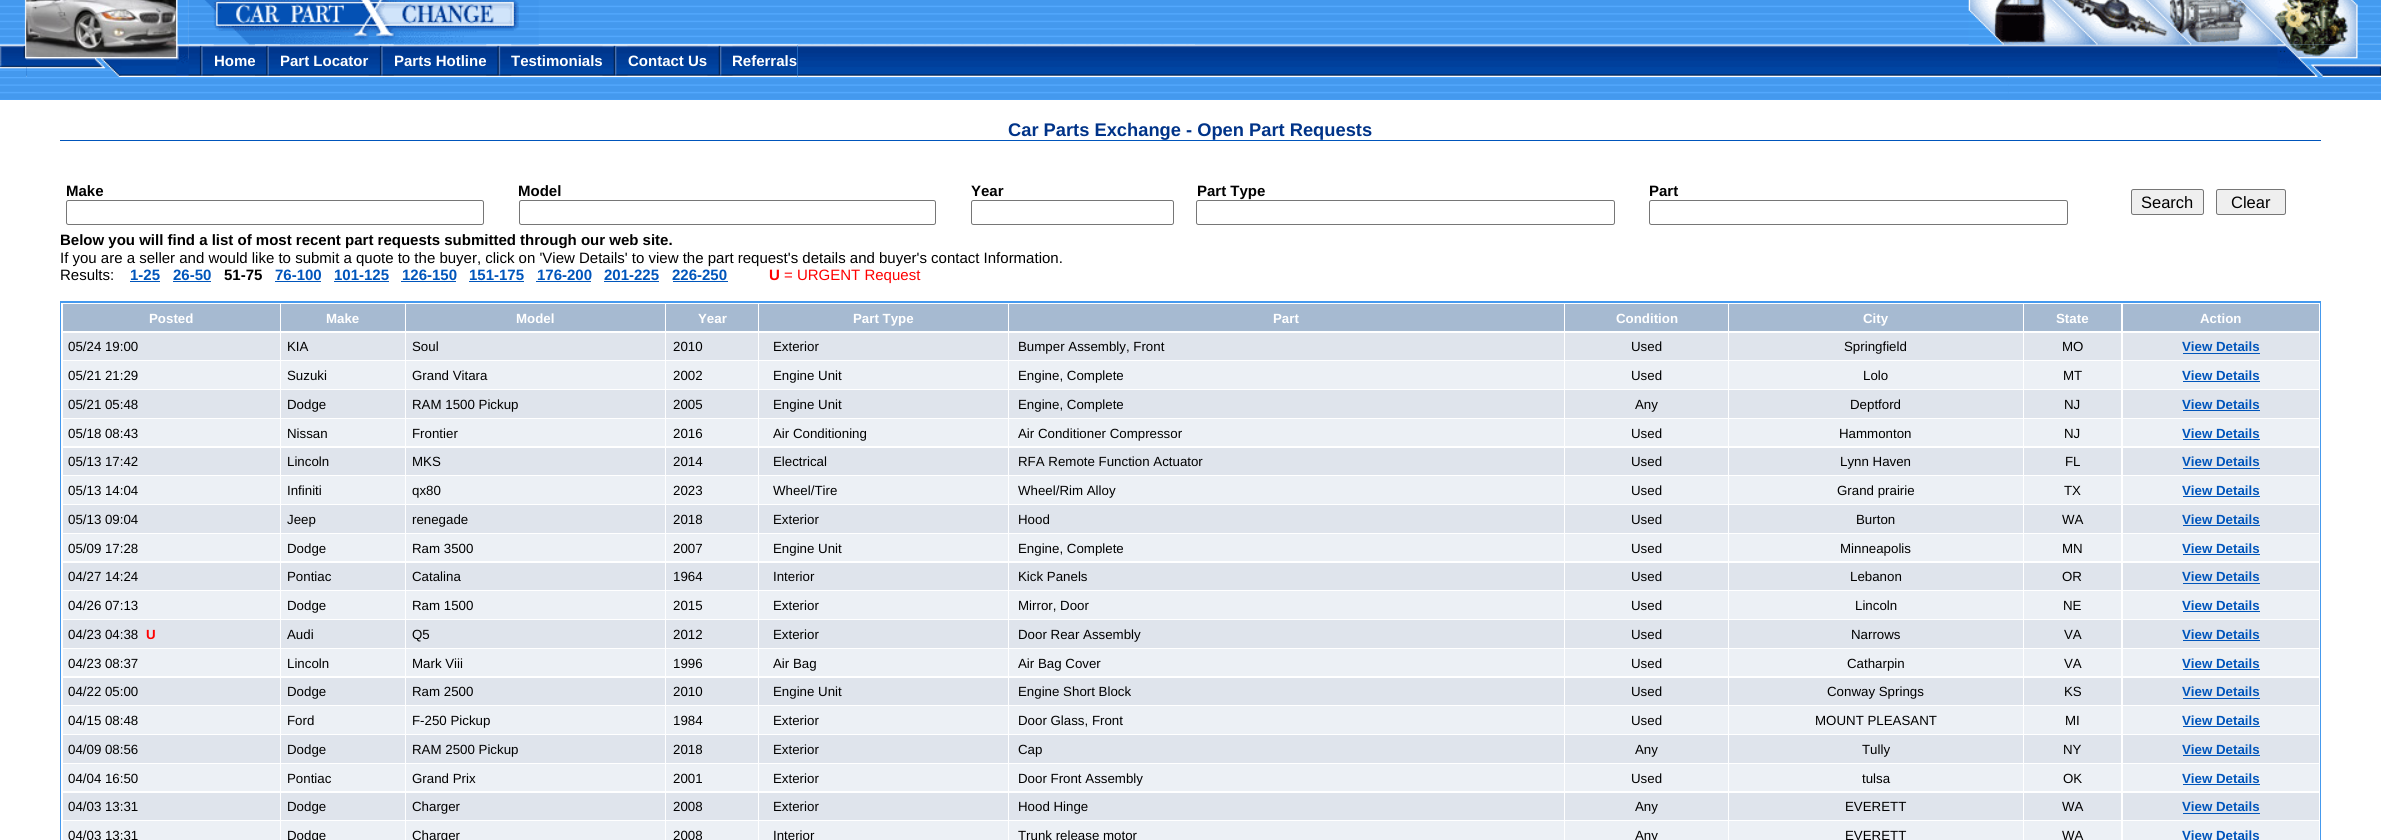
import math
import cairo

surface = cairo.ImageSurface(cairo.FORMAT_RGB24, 2381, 840)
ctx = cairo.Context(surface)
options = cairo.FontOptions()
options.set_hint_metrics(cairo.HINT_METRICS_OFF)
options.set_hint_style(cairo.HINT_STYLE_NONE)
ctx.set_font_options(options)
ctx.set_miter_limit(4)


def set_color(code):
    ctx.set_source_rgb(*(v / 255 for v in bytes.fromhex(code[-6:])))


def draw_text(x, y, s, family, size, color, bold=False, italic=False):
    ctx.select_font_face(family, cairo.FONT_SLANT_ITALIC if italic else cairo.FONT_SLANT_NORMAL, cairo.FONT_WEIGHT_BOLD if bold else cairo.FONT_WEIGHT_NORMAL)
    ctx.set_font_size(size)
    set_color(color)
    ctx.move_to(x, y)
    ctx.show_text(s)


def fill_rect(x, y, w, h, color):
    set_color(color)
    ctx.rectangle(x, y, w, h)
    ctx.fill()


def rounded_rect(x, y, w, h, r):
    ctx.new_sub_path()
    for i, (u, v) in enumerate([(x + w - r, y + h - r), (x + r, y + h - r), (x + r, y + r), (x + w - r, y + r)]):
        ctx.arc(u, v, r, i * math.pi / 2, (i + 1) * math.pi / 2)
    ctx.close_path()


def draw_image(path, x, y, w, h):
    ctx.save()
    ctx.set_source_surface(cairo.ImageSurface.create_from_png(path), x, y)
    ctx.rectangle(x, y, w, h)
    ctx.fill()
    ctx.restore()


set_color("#ffffff")
ctx.paint()
draw_image("assets/img1.png", 26, 0, 1983, 78)
draw_image("assets/img3.png", 26, 0, 151, 77)
draw_image("assets/img2.png", 0, 0, 27, 77)
draw_image("assets/img4.png", 26, 0, 151, 57)
draw_image("assets/img5.png", 26, 57, 96, 20)
draw_image("assets/img7.png", 188, 0, 1007, 45)
draw_image("assets/img8.png", 188, 0, 1007, 45)
fill_rect(1195, 0, 1186, 45, "#4499ee")
draw_image("assets/img10.png", 1195, 5, 1186, 40)
draw_image("assets/img12.png", 188, 44, 2193, 33)
draw_image("assets/img6.png", 176, 0, 13, 76)
draw_image("assets/img14.png", 213, 44, 42, 33)
draw_image("assets/img16.png", 280, 44, 89, 33)
draw_image("assets/img18.png", 393, 44, 94, 33)
draw_image("assets/img20.png", 511, 44, 92, 33)
draw_image("assets/img9.png", 188, 0, 351, 45)
draw_image("assets/img11.png", 1968, 0, 413, 45)
draw_image("assets/img13.png", 188, 44, 26, 32)
draw_text(214, 66, "Home", "Liberation Sans", 15, "#ffffff", bold=True)
draw_image("assets/img15.png", 255, 44, 25, 32)
draw_text(280, 66, "Part Locator", "Liberation Sans", 15, "#ffffff", bold=True)
draw_image("assets/img17.png", 368, 44, 26, 33)
draw_text(394, 66, "Parts Hotline", "Liberation Sans", 15, "#ffffff", bold=True)
draw_image("assets/img19.png", 486, 44, 26, 33)
draw_text(511, 66, "Testimonials", "Liberation Sans", 15, "#ffffff", bold=True)
draw_image("assets/img22.png", 627, 44, 81, 33)
draw_image("assets/img21.png", 602, 44, 26, 33)
draw_text(628, 66, "Contact Us", "Liberation Sans", 15, "#ffffff", bold=True)
fill_rect(797, 45, 1, 32, "#4499ee")
draw_image("assets/img24.png", 732, 44, 66, 33)
draw_image("assets/img23.png", 707, 44, 26, 33)
draw_text(732, 66, "Referrals", "Liberation Sans", 15, "#ffffff", bold=True)
draw_image("assets/img25.png", 2277, 44, 104, 33)
fill_rect(0, 78, 2009, 22, "#4499ee")
draw_image("assets/img26.png", 0, 77, 2009, 23)
fill_rect(2009, 99, 372, 1, "#4499ee")
draw_image("assets/img27.png", 2009, 77, 372, 23)
draw_text(1008, 136, "Car Parts Exchange - Open Part Requests", "Liberation Sans", 18.3, "#003388", bold=True)
fill_rect(60, 140, 2261, 1, "#0055bb")
draw_text(66, 196, "Make", "Liberation Sans", 15, "#000000", bold=True)
rounded_rect(66.5, 200.5, 417, 24, 2)
set_color("#767676")
ctx.set_line_width(1)
ctx.stroke()
draw_text(518, 196, "Model", "Liberation Sans", 15, "#000000", bold=True)
rounded_rect(519.5, 200.5, 416, 24, 2)
set_color("#767676")
ctx.stroke()
draw_text(971, 196, "Year", "Liberation Sans", 15, "#000000", bold=True)
rounded_rect(971.5, 200.5, 202, 24, 2)
set_color("#767676")
ctx.stroke()
draw_text(1197, 196, "Part Type", "Liberation Sans", 15, "#000000", bold=True)
rounded_rect(1196.5, 200.5, 418, 24, 2)
set_color("#767676")
ctx.stroke()
draw_text(1649, 196, "Part", "Liberation Sans", 15, "#000000", bold=True)
rounded_rect(1649.5, 200.5, 418, 24, 2)
set_color("#767676")
ctx.stroke()
set_color("#efefef")
rounded_rect(2131.5, 189.5, 72, 25, 2)
ctx.fill_preserve()
set_color("#767676")
ctx.stroke()
draw_text(2141, 208, "Search", "Liberation Sans", 16.5, "#000000")
set_color("#efefef")
rounded_rect(2216.5, 189.5, 69, 25, 2)
ctx.fill_preserve()
set_color("#767676")
ctx.stroke()
draw_text(2231, 208, "Clear", "Liberation Sans", 16.5, "#000000")
draw_text(60, 245, "Below you will find a list of most recent part requests submitted through our web site.", "Liberation Sans", 15, "#000000", bold=True)
draw_text(60, 263, "If you are a seller and would like to submit a quote to the buyer, click on 'View Details' to view the part request's details and buyer's contact Information.", "Liberation Sans", 15, "#000000")
draw_text(60, 280, "Results:", "Liberation Sans", 15, "#000000")
draw_text(130, 280, "1-25", "Liberation Sans", 15, "#0055bb", bold=True)
fill_rect(130, 281, 30, 1, "#0055bb")
draw_text(173, 280, "26-50", "Liberation Sans", 15, "#0055bb", bold=True)
fill_rect(173, 281, 38, 1, "#0055bb")
draw_text(224, 280, "51-75", "Liberation Sans", 15, "#000000", bold=True)
draw_text(275, 280, "76-100", "Liberation Sans", 15, "#0055bb", bold=True)
fill_rect(275, 281, 46, 1, "#0055bb")
draw_text(334, 280, "101-125", "Liberation Sans", 15, "#0055bb", bold=True)
fill_rect(334, 281, 55, 1, "#0055bb")
draw_text(402, 280, "126-150", "Liberation Sans", 15, "#0055bb", bold=True)
fill_rect(401, 281, 55, 1, "#0055bb")
draw_text(469, 280, "151-175", "Liberation Sans", 15, "#0055bb", bold=True)
fill_rect(469, 281, 55, 1, "#0055bb")
draw_text(537, 280, "176-200", "Liberation Sans", 15, "#0055bb", bold=True)
fill_rect(536, 281, 55, 1, "#0055bb")
draw_text(604, 280, "201-225", "Liberation Sans", 15, "#0055bb", bold=True)
fill_rect(604, 281, 55, 1, "#0055bb")
draw_text(672, 280, "226-250", "Liberation Sans", 15, "#0055bb", bold=True)
fill_rect(673, 281, 55, 1, "#0055bb")
draw_text(769, 280, "U", "Liberation Sans", 15, "#ff0000", bold=True)
draw_text(784, 280, "= URGENT Request", "Liberation Sans", 15, "#ff0000")
fill_rect(60, 301, 2261, 539, "#4499ee")
fill_rect(61, 303, 2259, 537, "#ffffff")
fill_rect(63, 304, 217, 27, "#a6bad1")
draw_text(149, 323, "Posted", "Liberation Sans", 13.3, "#ffffff", bold=True)
fill_rect(281, 304, 124, 27, "#a6bad1")
draw_text(326, 323, "Make", "Liberation Sans", 13.3, "#ffffff", bold=True)
fill_rect(406, 304, 259, 27, "#a6bad1")
draw_text(516, 323, "Model", "Liberation Sans", 13.3, "#ffffff", bold=True)
fill_rect(666, 304, 92, 27, "#a6bad1")
draw_text(698, 323, "Year", "Liberation Sans", 13.3, "#ffffff", bold=True)
fill_rect(759, 304, 249, 27, "#a6bad1")
draw_text(853, 323, "Part Type", "Liberation Sans", 13.3, "#ffffff", bold=True)
fill_rect(1009, 304, 555, 27, "#a6bad1")
draw_text(1273, 323, "Part", "Liberation Sans", 13.3, "#ffffff", bold=True)
fill_rect(1565, 304, 163, 27, "#a6bad1")
draw_text(1616, 323, "Condition", "Liberation Sans", 13.3, "#ffffff", bold=True)
fill_rect(1729, 304, 294, 27, "#a6bad1")
draw_text(1863, 323, "City", "Liberation Sans", 13.3, "#ffffff", bold=True)
fill_rect(2024, 304, 97, 27, "#a6bad1")
draw_text(2056, 323, "State", "Liberation Sans", 13.3, "#ffffff", bold=True)
fill_rect(2123, 304, 196, 27, "#a6bad1")
draw_text(2200, 323, "Action", "Liberation Sans", 13.3, "#ffffff", bold=True)
fill_rect(63, 333, 217, 27, "#dfe4ec")
draw_text(68, 351, "05/24 19:00", "Liberation Sans", 13.3, "#000000")
fill_rect(281, 333, 124, 27, "#dfe4ec")
draw_text(287, 351, "KIA", "Liberation Sans", 13.3, "#000000")
fill_rect(406, 333, 259, 27, "#dfe4ec")
draw_text(412, 351, "Soul", "Liberation Sans", 13.3, "#000000")
fill_rect(666, 333, 92, 27, "#dfe4ec")
draw_text(673, 351, "2010", "Liberation Sans", 13.3, "#000000")
fill_rect(759, 333, 249, 27, "#dfe4ec")
draw_text(773, 351, "Exterior", "Liberation Sans", 13.3, "#000000")
fill_rect(1009, 333, 555, 27, "#dfe4ec")
draw_text(1018, 351, "Bumper Assembly, Front", "Liberation Sans", 13.3, "#000000")
fill_rect(1565, 333, 163, 27, "#dfe4ec")
draw_text(1631, 351, "Used", "Liberation Sans", 13.3, "#000000")
fill_rect(1729, 333, 294, 27, "#dfe4ec")
draw_text(1844, 351, "Springfield", "Liberation Sans", 13.3, "#000000")
fill_rect(2024, 333, 97, 27, "#dfe4ec")
draw_text(2062, 351, "MO", "Liberation Sans", 13.3, "#000000")
fill_rect(2123, 333, 196, 27, "#dfe4ec")
draw_text(2182, 351, "View Details", "Liberation Sans", 13.3, "#0055bb", bold=True)
fill_rect(2183, 353, 77, 1, "#0055bb")
fill_rect(63, 361, 217, 28, "#ecf0f5")
draw_text(68, 380, "05/21 21:29", "Liberation Sans", 13.3, "#000000")
fill_rect(281, 361, 124, 28, "#ecf0f5")
draw_text(287, 380, "Suzuki", "Liberation Sans", 13.3, "#000000")
fill_rect(406, 361, 259, 28, "#ecf0f5")
draw_text(412, 380, "Grand Vitara", "Liberation Sans", 13.3, "#000000")
fill_rect(666, 361, 92, 28, "#ecf0f5")
draw_text(673, 380, "2002", "Liberation Sans", 13.3, "#000000")
fill_rect(759, 361, 249, 28, "#ecf0f5")
draw_text(773, 380, "Engine Unit", "Liberation Sans", 13.3, "#000000")
fill_rect(1009, 361, 555, 28, "#ecf0f5")
draw_text(1018, 380, "Engine, Complete", "Liberation Sans", 13.3, "#000000")
fill_rect(1565, 361, 163, 28, "#ecf0f5")
draw_text(1631, 380, "Used", "Liberation Sans", 13.3, "#000000")
fill_rect(1729, 361, 294, 28, "#ecf0f5")
draw_text(1863, 380, "Lolo", "Liberation Sans", 13.3, "#000000")
fill_rect(2024, 361, 97, 28, "#ecf0f5")
draw_text(2063, 380, "MT", "Liberation Sans", 13.3, "#000000")
fill_rect(2123, 361, 196, 28, "#ecf0f5")
draw_text(2182, 380, "View Details", "Liberation Sans", 13.3, "#0055bb", bold=True)
fill_rect(2183, 381, 77, 1, "#0055bb")
fill_rect(63, 390, 217, 28, "#dfe4ec")
draw_text(68, 409, "05/21 05:48", "Liberation Sans", 13.3, "#000000")
fill_rect(281, 390, 124, 28, "#dfe4ec")
draw_text(287, 409, "Dodge", "Liberation Sans", 13.3, "#000000")
fill_rect(406, 390, 259, 28, "#dfe4ec")
draw_text(412, 409, "RAM 1500 Pickup", "Liberation Sans", 13.3, "#000000")
fill_rect(666, 390, 92, 28, "#dfe4ec")
draw_text(673, 409, "2005", "Liberation Sans", 13.3, "#000000")
fill_rect(759, 390, 249, 28, "#dfe4ec")
draw_text(773, 409, "Engine Unit", "Liberation Sans", 13.3, "#000000")
fill_rect(1009, 390, 555, 28, "#dfe4ec")
draw_text(1018, 409, "Engine, Complete", "Liberation Sans", 13.3, "#000000")
fill_rect(1565, 390, 163, 28, "#dfe4ec")
draw_text(1635, 409, "Any", "Liberation Sans", 13.3, "#000000")
fill_rect(1729, 390, 294, 28, "#dfe4ec")
draw_text(1850, 409, "Deptford", "Liberation Sans", 13.3, "#000000")
fill_rect(2024, 390, 97, 28, "#dfe4ec")
draw_text(2064, 409, "NJ", "Liberation Sans", 13.3, "#000000")
fill_rect(2123, 390, 196, 28, "#dfe4ec")
draw_text(2182, 409, "View Details", "Liberation Sans", 13.3, "#0055bb", bold=True)
fill_rect(2183, 410, 77, 1, "#0055bb")
fill_rect(63, 419, 217, 27, "#ecf0f5")
draw_text(68, 438, "05/18 08:43", "Liberation Sans", 13.3, "#000000")
fill_rect(281, 419, 124, 27, "#ecf0f5")
draw_text(287, 438, "Nissan", "Liberation Sans", 13.3, "#000000")
fill_rect(406, 419, 259, 27, "#ecf0f5")
draw_text(412, 438, "Frontier", "Liberation Sans", 13.3, "#000000")
fill_rect(666, 419, 92, 27, "#ecf0f5")
draw_text(673, 438, "2016", "Liberation Sans", 13.3, "#000000")
fill_rect(759, 419, 249, 27, "#ecf0f5")
draw_text(773, 438, "Air Conditioning", "Liberation Sans", 13.3, "#000000")
fill_rect(1009, 419, 555, 27, "#ecf0f5")
draw_text(1018, 438, "Air Conditioner Compressor", "Liberation Sans", 13.3, "#000000")
fill_rect(1565, 419, 163, 27, "#ecf0f5")
draw_text(1631, 438, "Used", "Liberation Sans", 13.3, "#000000")
fill_rect(1729, 419, 294, 27, "#ecf0f5")
draw_text(1839, 438, "Hammonton", "Liberation Sans", 13.3, "#000000")
fill_rect(2024, 419, 97, 27, "#ecf0f5")
draw_text(2064, 438, "NJ", "Liberation Sans", 13.3, "#000000")
fill_rect(2123, 419, 196, 27, "#ecf0f5")
draw_text(2182, 438, "View Details", "Liberation Sans", 13.3, "#0055bb", bold=True)
fill_rect(2183, 439, 77, 1, "#0055bb")
fill_rect(63, 448, 217, 27, "#dfe4ec")
draw_text(68, 466, "05/13 17:42", "Liberation Sans", 13.3, "#000000")
fill_rect(281, 448, 124, 27, "#dfe4ec")
draw_text(287, 466, "Lincoln", "Liberation Sans", 13.3, "#000000")
fill_rect(406, 448, 259, 27, "#dfe4ec")
draw_text(412, 466, "MKS", "Liberation Sans", 13.3, "#000000")
fill_rect(666, 448, 92, 27, "#dfe4ec")
draw_text(673, 466, "2014", "Liberation Sans", 13.3, "#000000")
fill_rect(759, 448, 249, 27, "#dfe4ec")
draw_text(773, 466, "Electrical", "Liberation Sans", 13.3, "#000000")
fill_rect(1009, 448, 555, 27, "#dfe4ec")
draw_text(1018, 466, "RFA Remote Function Actuator", "Liberation Sans", 13.3, "#000000")
fill_rect(1565, 448, 163, 27, "#dfe4ec")
draw_text(1631, 466, "Used", "Liberation Sans", 13.3, "#000000")
fill_rect(1729, 448, 294, 27, "#dfe4ec")
draw_text(1840, 466, "Lynn Haven", "Liberation Sans", 13.3, "#000000")
fill_rect(2024, 448, 97, 27, "#dfe4ec")
draw_text(2065, 466, "FL", "Liberation Sans", 13.3, "#000000")
fill_rect(2123, 448, 196, 27, "#dfe4ec")
draw_text(2182, 466, "View Details", "Liberation Sans", 13.3, "#0055bb", bold=True)
fill_rect(2183, 468, 77, 1, "#0055bb")
fill_rect(63, 476, 217, 28, "#ecf0f5")
draw_text(68, 495, "05/13 14:04", "Liberation Sans", 13.3, "#000000")
fill_rect(281, 476, 124, 28, "#ecf0f5")
draw_text(287, 495, "Infiniti", "Liberation Sans", 13.3, "#000000")
fill_rect(406, 476, 259, 28, "#ecf0f5")
draw_text(412, 495, "qx80", "Liberation Sans", 13.3, "#000000")
fill_rect(666, 476, 92, 28, "#ecf0f5")
draw_text(673, 495, "2023", "Liberation Sans", 13.3, "#000000")
fill_rect(759, 476, 249, 28, "#ecf0f5")
draw_text(773, 495, "Wheel/Tire", "Liberation Sans", 13.3, "#000000")
fill_rect(1009, 476, 555, 28, "#ecf0f5")
draw_text(1018, 495, "Wheel/Rim Alloy", "Liberation Sans", 13.3, "#000000")
fill_rect(1565, 476, 163, 28, "#ecf0f5")
draw_text(1631, 495, "Used", "Liberation Sans", 13.3, "#000000")
fill_rect(1729, 476, 294, 28, "#ecf0f5")
draw_text(1837, 495, "Grand prairie", "Liberation Sans", 13.3, "#000000")
fill_rect(2024, 476, 97, 28, "#ecf0f5")
draw_text(2064, 495, "TX", "Liberation Sans", 13.3, "#000000")
fill_rect(2123, 476, 196, 28, "#ecf0f5")
draw_text(2182, 495, "View Details", "Liberation Sans", 13.3, "#0055bb", bold=True)
fill_rect(2183, 496, 77, 1, "#0055bb")
fill_rect(63, 505, 217, 28, "#dfe4ec")
draw_text(68, 524, "05/13 09:04", "Liberation Sans", 13.3, "#000000")
fill_rect(281, 505, 124, 28, "#dfe4ec")
draw_text(287, 524, "Jeep", "Liberation Sans", 13.3, "#000000")
fill_rect(406, 505, 259, 28, "#dfe4ec")
draw_text(412, 524, "renegade", "Liberation Sans", 13.3, "#000000")
fill_rect(666, 505, 92, 28, "#dfe4ec")
draw_text(673, 524, "2018", "Liberation Sans", 13.3, "#000000")
fill_rect(759, 505, 249, 28, "#dfe4ec")
draw_text(773, 524, "Exterior", "Liberation Sans", 13.3, "#000000")
fill_rect(1009, 505, 555, 28, "#dfe4ec")
draw_text(1018, 524, "Hood", "Liberation Sans", 13.3, "#000000")
fill_rect(1565, 505, 163, 28, "#dfe4ec")
draw_text(1631, 524, "Used", "Liberation Sans", 13.3, "#000000")
fill_rect(1729, 505, 294, 28, "#dfe4ec")
draw_text(1856, 524, "Burton", "Liberation Sans", 13.3, "#000000")
fill_rect(2024, 505, 97, 28, "#dfe4ec")
draw_text(2062, 524, "WA", "Liberation Sans", 13.3, "#000000")
fill_rect(2123, 505, 196, 28, "#dfe4ec")
draw_text(2182, 524, "View Details", "Liberation Sans", 13.3, "#0055bb", bold=True)
fill_rect(2183, 525, 77, 1, "#0055bb")
fill_rect(63, 534, 217, 27, "#ecf0f5")
draw_text(68, 553, "05/09 17:28", "Liberation Sans", 13.3, "#000000")
fill_rect(281, 534, 124, 27, "#ecf0f5")
draw_text(287, 553, "Dodge", "Liberation Sans", 13.3, "#000000")
fill_rect(406, 534, 259, 27, "#ecf0f5")
draw_text(412, 553, "Ram 3500", "Liberation Sans", 13.3, "#000000")
fill_rect(666, 534, 92, 27, "#ecf0f5")
draw_text(673, 553, "2007", "Liberation Sans", 13.3, "#000000")
fill_rect(759, 534, 249, 27, "#ecf0f5")
draw_text(773, 553, "Engine Unit", "Liberation Sans", 13.3, "#000000")
fill_rect(1009, 534, 555, 27, "#ecf0f5")
draw_text(1018, 553, "Engine, Complete", "Liberation Sans", 13.3, "#000000")
fill_rect(1565, 534, 163, 27, "#ecf0f5")
draw_text(1631, 553, "Used", "Liberation Sans", 13.3, "#000000")
fill_rect(1729, 534, 294, 27, "#ecf0f5")
draw_text(1840, 553, "Minneapolis", "Liberation Sans", 13.3, "#000000")
fill_rect(2024, 534, 97, 27, "#ecf0f5")
draw_text(2062, 553, "MN", "Liberation Sans", 13.3, "#000000")
fill_rect(2123, 534, 196, 27, "#ecf0f5")
draw_text(2182, 553, "View Details", "Liberation Sans", 13.3, "#0055bb", bold=True)
fill_rect(2183, 554, 77, 1, "#0055bb")
fill_rect(63, 563, 217, 27, "#dfe4ec")
draw_text(68, 581, "04/27 14:24", "Liberation Sans", 13.3, "#000000")
fill_rect(281, 563, 124, 27, "#dfe4ec")
draw_text(287, 581, "Pontiac", "Liberation Sans", 13.3, "#000000")
fill_rect(406, 563, 259, 27, "#dfe4ec")
draw_text(412, 581, "Catalina", "Liberation Sans", 13.3, "#000000")
fill_rect(666, 563, 92, 27, "#dfe4ec")
draw_text(673, 581, "1964", "Liberation Sans", 13.3, "#000000")
fill_rect(759, 563, 249, 27, "#dfe4ec")
draw_text(773, 581, "Interior", "Liberation Sans", 13.3, "#000000")
fill_rect(1009, 563, 555, 27, "#dfe4ec")
draw_text(1018, 581, "Kick Panels", "Liberation Sans", 13.3, "#000000")
fill_rect(1565, 563, 163, 27, "#dfe4ec")
draw_text(1631, 581, "Used", "Liberation Sans", 13.3, "#000000")
fill_rect(1729, 563, 294, 27, "#dfe4ec")
draw_text(1850, 581, "Lebanon", "Liberation Sans", 13.3, "#000000")
fill_rect(2024, 563, 97, 27, "#dfe4ec")
draw_text(2062, 581, "OR", "Liberation Sans", 13.3, "#000000")
fill_rect(2123, 563, 196, 27, "#dfe4ec")
draw_text(2182, 581, "View Details", "Liberation Sans", 13.3, "#0055bb", bold=True)
fill_rect(2183, 583, 77, 1, "#0055bb")
fill_rect(63, 591, 217, 28, "#ecf0f5")
draw_text(68, 610, "04/26 07:13", "Liberation Sans", 13.3, "#000000")
fill_rect(281, 591, 124, 28, "#ecf0f5")
draw_text(287, 610, "Dodge", "Liberation Sans", 13.3, "#000000")
fill_rect(406, 591, 259, 28, "#ecf0f5")
draw_text(412, 610, "Ram 1500", "Liberation Sans", 13.3, "#000000")
fill_rect(666, 591, 92, 28, "#ecf0f5")
draw_text(673, 610, "2015", "Liberation Sans", 13.3, "#000000")
fill_rect(759, 591, 249, 28, "#ecf0f5")
draw_text(773, 610, "Exterior", "Liberation Sans", 13.3, "#000000")
fill_rect(1009, 591, 555, 28, "#ecf0f5")
draw_text(1018, 610, "Mirror, Door", "Liberation Sans", 13.3, "#000000")
fill_rect(1565, 591, 163, 28, "#ecf0f5")
draw_text(1631, 610, "Used", "Liberation Sans", 13.3, "#000000")
fill_rect(1729, 591, 294, 28, "#ecf0f5")
draw_text(1855, 610, "Lincoln", "Liberation Sans", 13.3, "#000000")
fill_rect(2024, 591, 97, 28, "#ecf0f5")
draw_text(2063, 610, "NE", "Liberation Sans", 13.3, "#000000")
fill_rect(2123, 591, 196, 28, "#ecf0f5")
draw_text(2182, 610, "View Details", "Liberation Sans", 13.3, "#0055bb", bold=True)
fill_rect(2183, 611, 77, 1, "#0055bb")
fill_rect(63, 620, 217, 28, "#dfe4ec")
draw_text(68, 639, "04/23 04:38", "Liberation Sans", 13.3, "#000000")
draw_text(146, 639, "U", "Liberation Sans", 13.3, "#ff0000", bold=True)
fill_rect(281, 620, 124, 28, "#dfe4ec")
draw_text(287, 639, "Audi", "Liberation Sans", 13.3, "#000000")
fill_rect(406, 620, 259, 28, "#dfe4ec")
draw_text(412, 639, "Q5", "Liberation Sans", 13.3, "#000000")
fill_rect(666, 620, 92, 28, "#dfe4ec")
draw_text(673, 639, "2012", "Liberation Sans", 13.3, "#000000")
fill_rect(759, 620, 249, 28, "#dfe4ec")
draw_text(773, 639, "Exterior", "Liberation Sans", 13.3, "#000000")
fill_rect(1009, 620, 555, 28, "#dfe4ec")
draw_text(1018, 639, "Door Rear Assembly", "Liberation Sans", 13.3, "#000000")
fill_rect(1565, 620, 163, 28, "#dfe4ec")
draw_text(1631, 639, "Used", "Liberation Sans", 13.3, "#000000")
fill_rect(1729, 620, 294, 28, "#dfe4ec")
draw_text(1851, 639, "Narrows", "Liberation Sans", 13.3, "#000000")
fill_rect(2024, 620, 97, 28, "#dfe4ec")
draw_text(2064, 639, "VA", "Liberation Sans", 13.3, "#000000")
fill_rect(2123, 620, 196, 28, "#dfe4ec")
draw_text(2182, 639, "View Details", "Liberation Sans", 13.3, "#0055bb", bold=True)
fill_rect(2183, 640, 77, 1, "#0055bb")
fill_rect(63, 649, 217, 27, "#ecf0f5")
draw_text(68, 668, "04/23 08:37", "Liberation Sans", 13.3, "#000000")
fill_rect(281, 649, 124, 27, "#ecf0f5")
draw_text(287, 668, "Lincoln", "Liberation Sans", 13.3, "#000000")
fill_rect(406, 649, 259, 27, "#ecf0f5")
draw_text(412, 668, "Mark Viii", "Liberation Sans", 13.3, "#000000")
fill_rect(666, 649, 92, 27, "#ecf0f5")
draw_text(673, 668, "1996", "Liberation Sans", 13.3, "#000000")
fill_rect(759, 649, 249, 27, "#ecf0f5")
draw_text(773, 668, "Air Bag", "Liberation Sans", 13.3, "#000000")
fill_rect(1009, 649, 555, 27, "#ecf0f5")
draw_text(1018, 668, "Air Bag Cover", "Liberation Sans", 13.3, "#000000")
fill_rect(1565, 649, 163, 27, "#ecf0f5")
draw_text(1631, 668, "Used", "Liberation Sans", 13.3, "#000000")
fill_rect(1729, 649, 294, 27, "#ecf0f5")
draw_text(1847, 668, "Catharpin", "Liberation Sans", 13.3, "#000000")
fill_rect(2024, 649, 97, 27, "#ecf0f5")
draw_text(2064, 668, "VA", "Liberation Sans", 13.3, "#000000")
fill_rect(2123, 649, 196, 27, "#ecf0f5")
draw_text(2182, 668, "View Details", "Liberation Sans", 13.3, "#0055bb", bold=True)
fill_rect(2183, 669, 77, 1, "#0055bb")
fill_rect(63, 678, 217, 27, "#dfe4ec")
draw_text(68, 696, "04/22 05:00", "Liberation Sans", 13.3, "#000000")
fill_rect(281, 678, 124, 27, "#dfe4ec")
draw_text(287, 696, "Dodge", "Liberation Sans", 13.3, "#000000")
fill_rect(406, 678, 259, 27, "#dfe4ec")
draw_text(412, 696, "Ram 2500", "Liberation Sans", 13.3, "#000000")
fill_rect(666, 678, 92, 27, "#dfe4ec")
draw_text(673, 696, "2010", "Liberation Sans", 13.3, "#000000")
fill_rect(759, 678, 249, 27, "#dfe4ec")
draw_text(773, 696, "Engine Unit", "Liberation Sans", 13.3, "#000000")
fill_rect(1009, 678, 555, 27, "#dfe4ec")
draw_text(1018, 696, "Engine Short Block", "Liberation Sans", 13.3, "#000000")
fill_rect(1565, 678, 163, 27, "#dfe4ec")
draw_text(1631, 696, "Used", "Liberation Sans", 13.3, "#000000")
fill_rect(1729, 678, 294, 27, "#dfe4ec")
draw_text(1827, 696, "Conway Springs", "Liberation Sans", 13.3, "#000000")
fill_rect(2024, 678, 97, 27, "#dfe4ec")
draw_text(2064, 696, "KS", "Liberation Sans", 13.3, "#000000")
fill_rect(2123, 678, 196, 27, "#dfe4ec")
draw_text(2182, 696, "View Details", "Liberation Sans", 13.3, "#0055bb", bold=True)
fill_rect(2183, 698, 77, 1, "#0055bb")
fill_rect(63, 706, 217, 28, "#ecf0f5")
draw_text(68, 725, "04/15 08:48", "Liberation Sans", 13.3, "#000000")
fill_rect(281, 706, 124, 28, "#ecf0f5")
draw_text(287, 725, "Ford", "Liberation Sans", 13.3, "#000000")
fill_rect(406, 706, 259, 28, "#ecf0f5")
draw_text(412, 725, "F-250 Pickup", "Liberation Sans", 13.3, "#000000")
fill_rect(666, 706, 92, 28, "#ecf0f5")
draw_text(673, 725, "1984", "Liberation Sans", 13.3, "#000000")
fill_rect(759, 706, 249, 28, "#ecf0f5")
draw_text(773, 725, "Exterior", "Liberation Sans", 13.3, "#000000")
fill_rect(1009, 706, 555, 28, "#ecf0f5")
draw_text(1018, 725, "Door Glass, Front", "Liberation Sans", 13.3, "#000000")
fill_rect(1565, 706, 163, 28, "#ecf0f5")
draw_text(1631, 725, "Used", "Liberation Sans", 13.3, "#000000")
fill_rect(1729, 706, 294, 28, "#ecf0f5")
draw_text(1815, 725, "MOUNT PLEASANT", "Liberation Sans", 13.3, "#000000")
fill_rect(2024, 706, 97, 28, "#ecf0f5")
draw_text(2065, 725, "MI", "Liberation Sans", 13.3, "#000000")
fill_rect(2123, 706, 196, 28, "#ecf0f5")
draw_text(2182, 725, "View Details", "Liberation Sans", 13.3, "#0055bb", bold=True)
fill_rect(2183, 726, 77, 1, "#0055bb")
fill_rect(63, 735, 217, 28, "#dfe4ec")
draw_text(68, 754, "04/09 08:56", "Liberation Sans", 13.3, "#000000")
fill_rect(281, 735, 124, 28, "#dfe4ec")
draw_text(287, 754, "Dodge", "Liberation Sans", 13.3, "#000000")
fill_rect(406, 735, 259, 28, "#dfe4ec")
draw_text(412, 754, "RAM 2500 Pickup", "Liberation Sans", 13.3, "#000000")
fill_rect(666, 735, 92, 28, "#dfe4ec")
draw_text(673, 754, "2018", "Liberation Sans", 13.3, "#000000")
fill_rect(759, 735, 249, 28, "#dfe4ec")
draw_text(773, 754, "Exterior", "Liberation Sans", 13.3, "#000000")
fill_rect(1009, 735, 555, 28, "#dfe4ec")
draw_text(1018, 754, "Cap", "Liberation Sans", 13.3, "#000000")
fill_rect(1565, 735, 163, 28, "#dfe4ec")
draw_text(1635, 754, "Any", "Liberation Sans", 13.3, "#000000")
fill_rect(1729, 735, 294, 28, "#dfe4ec")
draw_text(1862, 754, "Tully", "Liberation Sans", 13.3, "#000000")
fill_rect(2024, 735, 97, 28, "#dfe4ec")
draw_text(2063, 754, "NY", "Liberation Sans", 13.3, "#000000")
fill_rect(2123, 735, 196, 28, "#dfe4ec")
draw_text(2182, 754, "View Details", "Liberation Sans", 13.3, "#0055bb", bold=True)
fill_rect(2183, 755, 77, 1, "#0055bb")
fill_rect(63, 764, 217, 27, "#ecf0f5")
draw_text(68, 783, "04/04 16:50", "Liberation Sans", 13.3, "#000000")
fill_rect(281, 764, 124, 27, "#ecf0f5")
draw_text(287, 783, "Pontiac", "Liberation Sans", 13.3, "#000000")
fill_rect(406, 764, 259, 27, "#ecf0f5")
draw_text(412, 783, "Grand Prix", "Liberation Sans", 13.3, "#000000")
fill_rect(666, 764, 92, 27, "#ecf0f5")
draw_text(673, 783, "2001", "Liberation Sans", 13.3, "#000000")
fill_rect(759, 764, 249, 27, "#ecf0f5")
draw_text(773, 783, "Exterior", "Liberation Sans", 13.3, "#000000")
fill_rect(1009, 764, 555, 27, "#ecf0f5")
draw_text(1018, 783, "Door Front Assembly", "Liberation Sans", 13.3, "#000000")
fill_rect(1565, 764, 163, 27, "#ecf0f5")
draw_text(1631, 783, "Used", "Liberation Sans", 13.3, "#000000")
fill_rect(1729, 764, 294, 27, "#ecf0f5")
draw_text(1862, 783, "tulsa", "Liberation Sans", 13.3, "#000000")
fill_rect(2024, 764, 97, 27, "#ecf0f5")
draw_text(2063, 783, "OK", "Liberation Sans", 13.3, "#000000")
fill_rect(2123, 764, 196, 27, "#ecf0f5")
draw_text(2182, 783, "View Details", "Liberation Sans", 13.3, "#0055bb", bold=True)
fill_rect(2183, 784, 77, 1, "#0055bb")
fill_rect(63, 793, 217, 27, "#dfe4ec")
draw_text(68, 811, "04/03 13:31", "Liberation Sans", 13.3, "#000000")
fill_rect(281, 793, 124, 27, "#dfe4ec")
draw_text(287, 811, "Dodge", "Liberation Sans", 13.3, "#000000")
fill_rect(406, 793, 259, 27, "#dfe4ec")
draw_text(412, 811, "Charger", "Liberation Sans", 13.3, "#000000")
fill_rect(666, 793, 92, 27, "#dfe4ec")
draw_text(673, 811, "2008", "Liberation Sans", 13.3, "#000000")
fill_rect(759, 793, 249, 27, "#dfe4ec")
draw_text(773, 811, "Exterior", "Liberation Sans", 13.3, "#000000")
fill_rect(1009, 793, 555, 27, "#dfe4ec")
draw_text(1018, 811, "Hood Hinge", "Liberation Sans", 13.3, "#000000")
fill_rect(1565, 793, 163, 27, "#dfe4ec")
draw_text(1635, 811, "Any", "Liberation Sans", 13.3, "#000000")
fill_rect(1729, 793, 294, 27, "#dfe4ec")
draw_text(1845, 811, "EVERETT", "Liberation Sans", 13.3, "#000000")
fill_rect(2024, 793, 97, 27, "#dfe4ec")
draw_text(2062, 811, "WA", "Liberation Sans", 13.3, "#000000")
fill_rect(2123, 793, 196, 27, "#dfe4ec")
draw_text(2182, 811, "View Details", "Liberation Sans", 13.3, "#0055bb", bold=True)
fill_rect(2183, 813, 77, 1, "#0055bb")
fill_rect(63, 821, 217, 19, "#ecf0f5")
draw_text(68, 840, "04/03 13:31", "Liberation Sans", 13.3, "#000000")
fill_rect(281, 821, 124, 19, "#ecf0f5")
draw_text(287, 840, "Dodge", "Liberation Sans", 13.3, "#000000")
fill_rect(406, 821, 259, 19, "#ecf0f5")
draw_text(412, 840, "Charger", "Liberation Sans", 13.3, "#000000")
fill_rect(666, 821, 92, 19, "#ecf0f5")
draw_text(673, 840, "2008", "Liberation Sans", 13.3, "#000000")
fill_rect(759, 821, 249, 19, "#ecf0f5")
draw_text(773, 840, "Interior", "Liberation Sans", 13.3, "#000000")
fill_rect(1009, 821, 555, 19, "#ecf0f5")
draw_text(1018, 840, "Trunk release motor", "Liberation Sans", 13.3, "#000000")
fill_rect(1565, 821, 163, 19, "#ecf0f5")
draw_text(1635, 840, "Any", "Liberation Sans", 13.3, "#000000")
fill_rect(1729, 821, 294, 19, "#ecf0f5")
draw_text(1845, 840, "EVERETT", "Liberation Sans", 13.3, "#000000")
fill_rect(2024, 821, 97, 19, "#ecf0f5")
draw_text(2062, 840, "WA", "Liberation Sans", 13.3, "#000000")
fill_rect(2123, 821, 196, 19, "#ecf0f5")
draw_text(2182, 840, "View Details", "Liberation Sans", 13.3, "#0055bb", bold=True)
surface.write_to_png("output.png")
